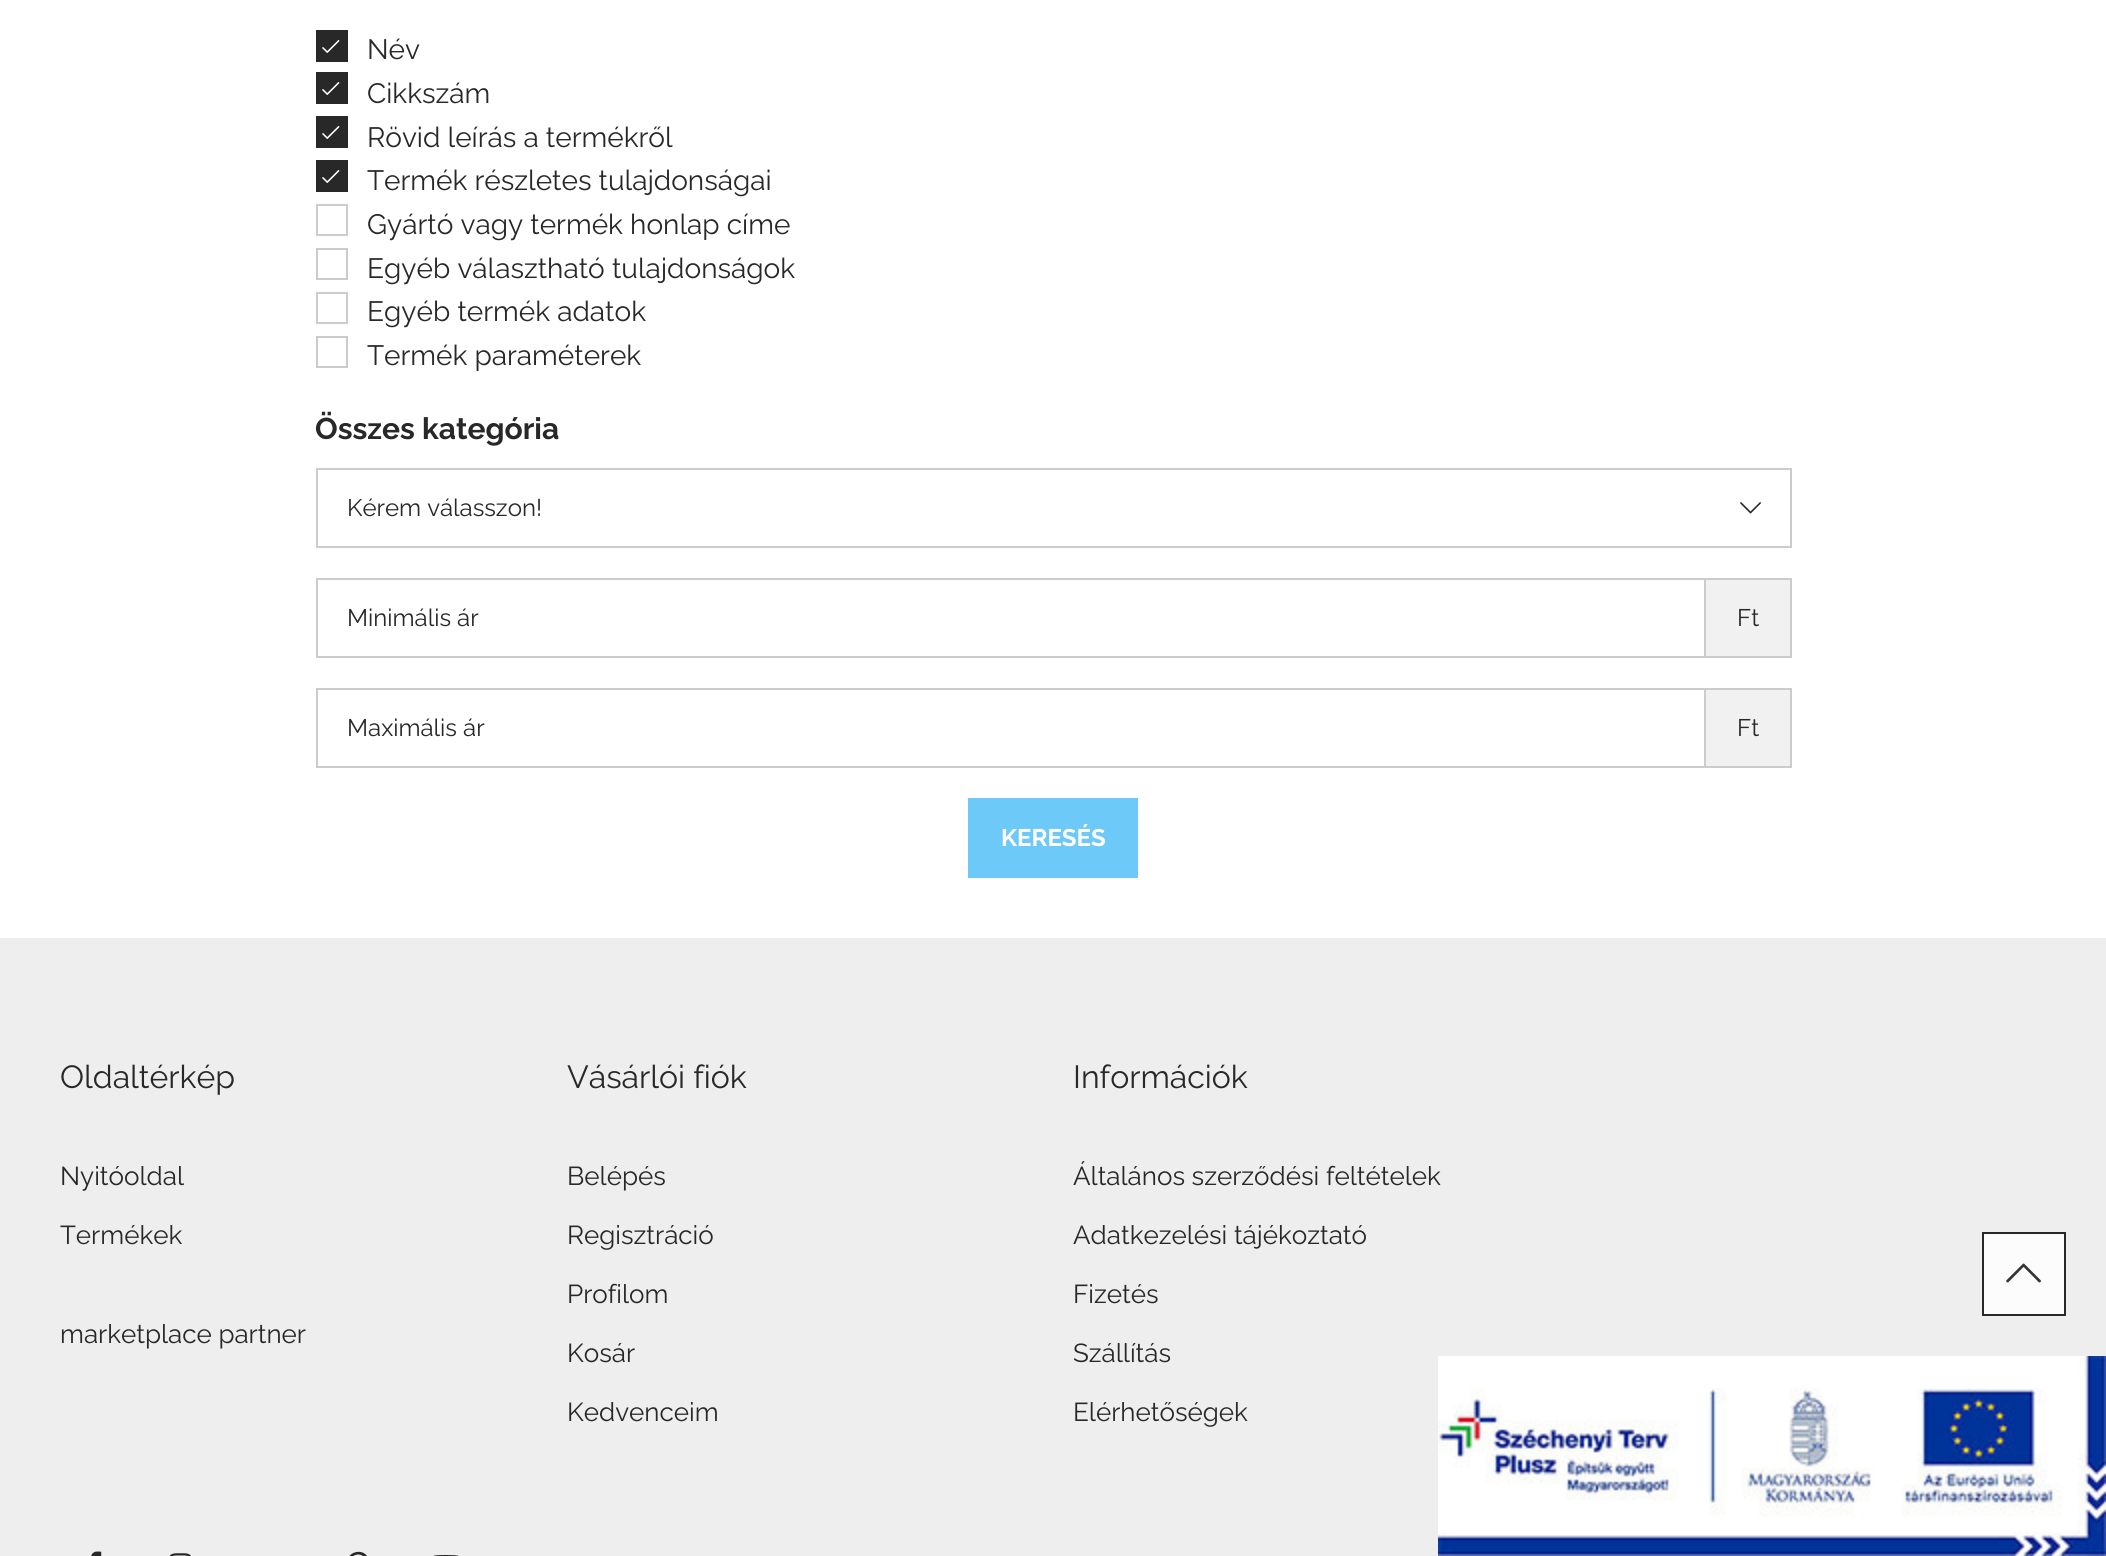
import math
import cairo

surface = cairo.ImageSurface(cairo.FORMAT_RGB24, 2106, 1556)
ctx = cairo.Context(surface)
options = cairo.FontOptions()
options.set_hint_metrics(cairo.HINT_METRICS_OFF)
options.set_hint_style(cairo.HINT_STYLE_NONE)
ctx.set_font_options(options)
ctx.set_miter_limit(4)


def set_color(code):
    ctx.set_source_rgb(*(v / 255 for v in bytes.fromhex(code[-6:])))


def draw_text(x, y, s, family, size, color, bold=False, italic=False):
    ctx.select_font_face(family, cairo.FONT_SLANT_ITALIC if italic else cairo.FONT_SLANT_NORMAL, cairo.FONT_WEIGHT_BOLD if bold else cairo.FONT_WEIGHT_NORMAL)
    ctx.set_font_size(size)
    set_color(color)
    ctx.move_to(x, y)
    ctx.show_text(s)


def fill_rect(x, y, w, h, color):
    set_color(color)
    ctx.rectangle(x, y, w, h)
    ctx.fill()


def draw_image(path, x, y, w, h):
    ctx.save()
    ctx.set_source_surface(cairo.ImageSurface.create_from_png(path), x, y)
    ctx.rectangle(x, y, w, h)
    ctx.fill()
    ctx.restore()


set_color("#ffffff")
ctx.paint()
fill_rect(316, 30, 32, 32, "#282828")
draw_image("assets/img1.png", 322, 40, 18, 13)
draw_text(367, 59, "Név", "Raleway", 28, "#282828")
fill_rect(316, 72, 32, 32, "#282828")
draw_image("assets/img1.png", 322, 82, 18, 13)
draw_text(367, 103, "Cikkszám", "Raleway", 28, "#282828")
fill_rect(316, 116, 32, 32, "#282828")
draw_image("assets/img1.png", 322, 126, 18, 13)
draw_text(367, 147, "Rövid leírás a termékről", "Raleway", 28, "#282828")
fill_rect(316, 160, 32, 32, "#282828")
draw_image("assets/img1.png", 322, 170, 18, 13)
draw_text(367, 190, "Termék részletes tulajdonságai", "Raleway", 28, "#282828")
ctx.rectangle(317, 205, 30, 30)
set_color("#cccccc")
ctx.stroke()
draw_text(367, 234, "Gyártó vagy termék honlap címe", "Raleway", 28, "#282828")
ctx.rectangle(317, 249, 30, 30)
set_color("#cccccc")
ctx.stroke()
draw_text(367, 278, "Egyéb választható tulajdonságok", "Raleway", 28, "#282828")
ctx.rectangle(317, 293, 30, 30)
set_color("#cccccc")
ctx.stroke()
draw_text(367, 321, "Egyéb termék adatok", "Raleway", 28, "#282828")
ctx.rectangle(317, 337, 30, 30)
set_color("#cccccc")
ctx.stroke()
draw_text(367, 365, "Termék paraméterek", "Raleway", 28, "#282828")
draw_text(315, 439, "Összes kategória", "Raleway", 30, "#282828", bold=True)
ctx.rectangle(317, 469, 1474, 78)
set_color("#cccccc")
ctx.stroke()
draw_text(347, 516, "Kérem válasszon!", "Raleway", 24, "#282828")
draw_image("assets/img2.png", 1740, 502, 21, 12)
set_color("#f1f1f1")
ctx.rectangle(1705, 579, 86, 78)
ctx.fill_preserve()
set_color("#cccccc")
ctx.stroke()
ctx.rectangle(317, 579, 1388, 78)
ctx.stroke()
draw_text(347, 626, "Minimális ár", "Raleway", 24, "#282828")
draw_text(1737, 626, "Ft", "Raleway", 24, "#282828")
set_color("#f1f1f1")
ctx.rectangle(1705, 689, 86, 78)
ctx.fill_preserve()
set_color("#cccccc")
ctx.stroke()
ctx.rectangle(317, 689, 1388, 78)
ctx.stroke()
draw_text(347, 736, "Maximális ár", "Raleway", 24, "#282828")
draw_text(1737, 736, "Ft", "Raleway", 24, "#282828")
fill_rect(968, 798, 170, 80, "#6dc9f7")
draw_text(1001, 846, "KERESÉS", "Raleway", 24, "#ffffff", bold=True)
fill_rect(0, 938, 2106, 618, "#eeeeee")
draw_text(60, 1088, "Oldaltérkép", "Raleway", 32, "#282828")
draw_text(60, 1185, "Nyitóoldal", "Raleway", 26, "#282828")
draw_text(60, 1244, "Termékek", "Raleway", 26, "#282828")
draw_text(60, 1343, "marketplace partner", "Raleway", 26, "#282828")
draw_text(567, 1088, "Vásárlói fiók", "Raleway", 32, "#282828")
draw_text(567, 1185, "Belépés", "Raleway", 26, "#282828")
draw_text(567, 1244, "Regisztráció", "Raleway", 26, "#282828")
draw_text(567, 1303, "Profilom", "Raleway", 26, "#282828")
draw_text(567, 1362, "Kosár", "Raleway", 26, "#282828")
draw_text(567, 1421, "Kedvenceim", "Raleway", 26, "#282828")
draw_text(1073, 1088, "Információk", "Raleway", 32, "#282828")
draw_text(1073, 1185, "Általános szerződési feltételek", "Raleway", 26, "#282828")
draw_text(1073, 1244, "Adatkezelési tájékoztató", "Raleway", 26, "#282828")
draw_text(1073, 1303, "Fizetés", "Raleway", 26, "#282828")
draw_text(1073, 1362, "Szállítás", "Raleway", 26, "#282828")
draw_text(1073, 1421, "Elérhetőségek", "Raleway", 26, "#282828")
draw_image("assets/img3.png", 91, 1551, 11, 5)
draw_image("assets/img4.png", 169, 1553, 22, 3)
draw_image("assets/img5.png", 349, 1551, 18, 5)
draw_image("assets/img6.png", 433, 1555, 26, 1)
set_color("#fcfcfc")
ctx.rectangle(1983, 1233, 82, 82)
ctx.fill_preserve()
set_color("#282828")
ctx.stroke()
draw_image("assets/img7.png", 2006, 1263, 35, 20)
draw_image("assets/img8.png", 1438, 1356, 668, 200)
surface.write_to_png("output.png")
